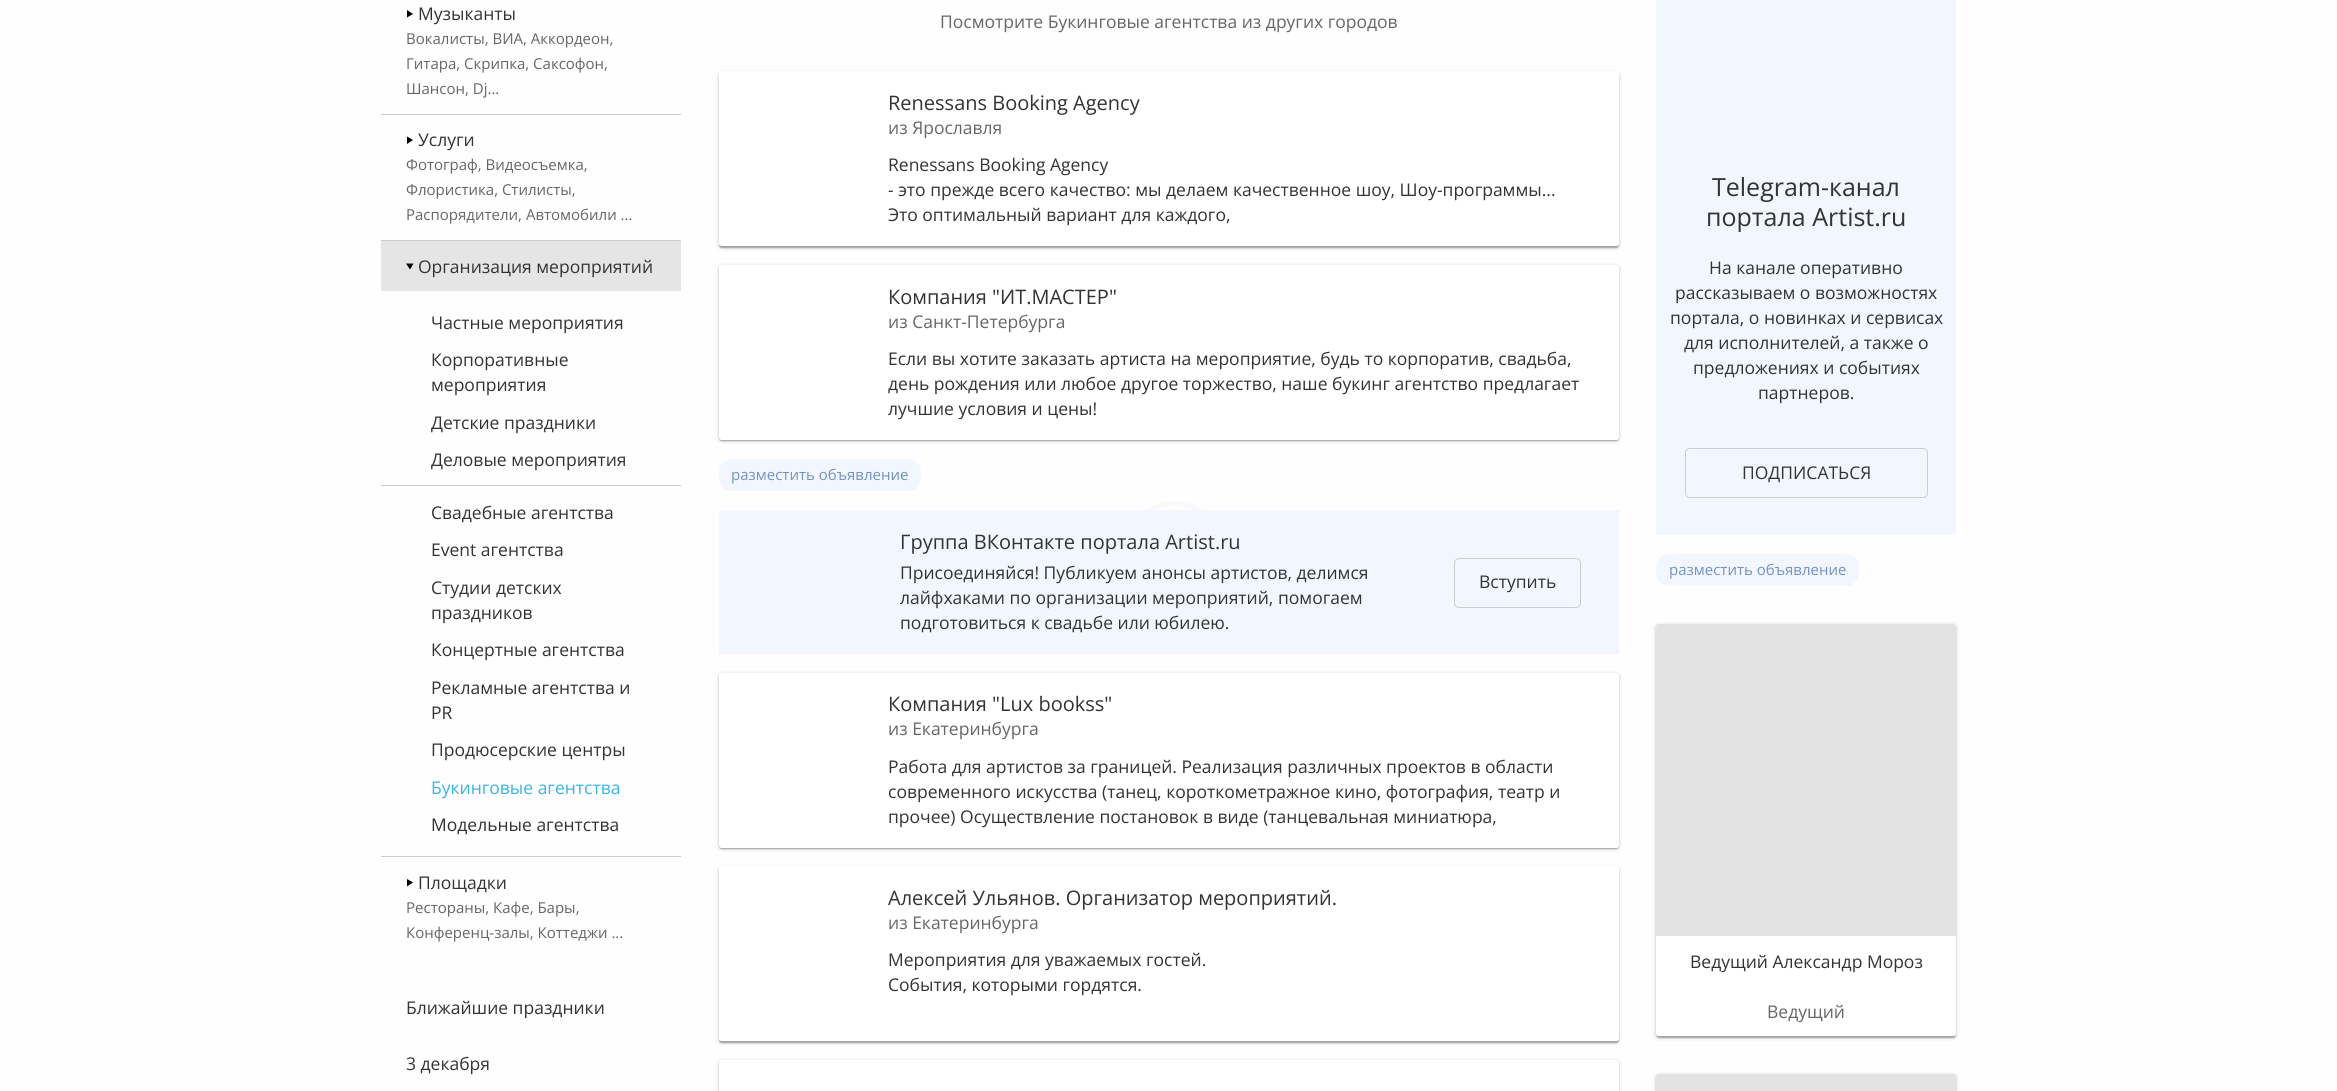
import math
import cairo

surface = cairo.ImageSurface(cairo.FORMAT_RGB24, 2337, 1091)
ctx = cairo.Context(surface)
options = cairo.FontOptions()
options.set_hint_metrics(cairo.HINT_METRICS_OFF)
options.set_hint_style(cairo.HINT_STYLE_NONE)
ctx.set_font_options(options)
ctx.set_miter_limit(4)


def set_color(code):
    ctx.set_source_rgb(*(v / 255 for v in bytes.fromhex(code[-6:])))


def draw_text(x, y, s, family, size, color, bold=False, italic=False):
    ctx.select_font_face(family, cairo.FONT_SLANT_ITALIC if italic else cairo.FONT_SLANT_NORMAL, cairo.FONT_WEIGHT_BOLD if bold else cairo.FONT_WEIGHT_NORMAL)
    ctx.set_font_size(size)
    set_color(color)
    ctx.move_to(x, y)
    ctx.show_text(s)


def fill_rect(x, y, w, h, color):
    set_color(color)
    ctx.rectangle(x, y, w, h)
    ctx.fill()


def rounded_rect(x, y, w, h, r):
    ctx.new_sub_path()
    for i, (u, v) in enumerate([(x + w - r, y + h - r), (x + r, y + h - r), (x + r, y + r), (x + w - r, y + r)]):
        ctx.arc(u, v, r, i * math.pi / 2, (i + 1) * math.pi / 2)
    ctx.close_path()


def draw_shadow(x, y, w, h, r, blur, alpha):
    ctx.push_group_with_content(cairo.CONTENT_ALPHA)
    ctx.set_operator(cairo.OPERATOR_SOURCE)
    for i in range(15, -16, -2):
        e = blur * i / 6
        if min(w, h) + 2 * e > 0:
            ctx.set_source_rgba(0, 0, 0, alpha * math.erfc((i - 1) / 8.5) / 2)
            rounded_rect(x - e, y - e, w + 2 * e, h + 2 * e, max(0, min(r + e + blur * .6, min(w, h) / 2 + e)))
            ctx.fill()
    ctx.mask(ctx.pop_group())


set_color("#fefefe")
ctx.paint()
set_color("#000000")
ctx.new_path()
ctx.move_to(407, 10)
ctx.line_to(407, 17.5)
ctx.line_to(413, 14)
ctx.close_path()
ctx.fill()
draw_text(418, 20, "Музыканты", "Open Sans", 17.5, "#333333")
draw_text(406, 44, "Вокалисты, ВИА, Аккордеон,", "Open Sans", 15, "#666666")
draw_text(406, 69, "Гитара, Скрипка, Саксофон,", "Open Sans", 15, "#666666")
draw_text(406, 94, "Шансон, Dj...", "Open Sans", 15, "#666666")
fill_rect(381, 114, 300, 1, "#cdcdcd")
set_color("#000000")
ctx.new_path()
ctx.move_to(407, 136.5)
ctx.line_to(407, 144)
ctx.line_to(413, 140)
ctx.close_path()
ctx.fill()
draw_text(418, 146, "Услуги", "Open Sans", 17.5, "#333333")
draw_text(406, 170, "Фотограф, Видеосъемка,", "Open Sans", 15, "#666666")
draw_text(406, 195, "Флористика, Стилисты,", "Open Sans", 15, "#666666")
draw_text(406, 220, "Распорядители, Автомобили ...", "Open Sans", 15, "#666666")
fill_rect(381, 240, 300, 1, "#cdcdcd")
fill_rect(381, 241, 300, 50, "#e5e5e5")
set_color("#000000")
ctx.new_path()
ctx.move_to(413.5, 263.5)
ctx.line_to(406, 263.5)
ctx.line_to(410, 269.5)
ctx.close_path()
ctx.fill()
draw_text(418, 273, "Организация мероприятий", "Open Sans", 17.5, "#333333")
draw_text(431, 329, "Частные мероприятия", "Open Sans", 17.5, "#333333")
draw_text(431, 366, "Корпоративные", "Open Sans", 17.5, "#333333")
draw_text(431, 391, "мероприятия", "Open Sans", 17.5, "#333333")
draw_text(431, 429, "Детские праздники", "Open Sans", 17.5, "#333333")
draw_text(431, 466, "Деловые мероприятия", "Open Sans", 17.5, "#333333")
fill_rect(381, 485, 300, 1, "#cdcdcd")
draw_text(431, 519, "Свадебные агентства", "Open Sans", 17.5, "#333333")
draw_text(431, 556, "Event агентства", "Open Sans", 17.5, "#333333")
draw_text(431, 594, "Студии детских", "Open Sans", 17.5, "#333333")
draw_text(431, 619, "праздников", "Open Sans", 17.5, "#333333")
draw_text(431, 656, "Концертные агентства", "Open Sans", 17.5, "#333333")
draw_text(431, 694, "Рекламные агентства и", "Open Sans", 17.5, "#333333")
draw_text(431, 719, "PR", "Open Sans", 17.5, "#333333")
draw_text(431, 756, "Продюсерские центры", "Open Sans", 17.5, "#333333")
draw_text(431, 794, "Букинговые агентства", "Open Sans", 17.5, "#38b4e7")
draw_text(431, 831, "Модельные агентства", "Open Sans", 17.5, "#333333")
fill_rect(381, 856, 300, 1, "#cdcdcd")
set_color("#000000")
ctx.new_path()
ctx.move_to(407, 879)
ctx.line_to(407, 886.5)
ctx.line_to(413, 882.5)
ctx.close_path()
ctx.fill()
draw_text(418, 889, "Площадки", "Open Sans", 17.5, "#333333")
draw_text(406, 913, "Рестораны, Кафе, Бары,", "Open Sans", 15, "#666666")
draw_text(406, 938, "Конференц-залы, Коттеджи ...", "Open Sans", 15, "#666666")
draw_text(406, 1014, "Ближайшие праздники", "Open Sans", 17.5, "#333333")
draw_text(406, 1070, "3 декабря", "Open Sans", 17.5, "#333333")
draw_text(940, 28, "Посмотрите Букинговые агентства из других городов", "Open Sans", 17.5, "#666666")
set_color("#000000")
draw_shadow(720, 75, 898, 173, 1, 0.5, 0.12)
draw_shadow(719, 73, 900, 175, 2.5, 0.5, 0.14)
draw_shadow(719, 73, 900, 175, 2.5, 2, 0.2)
set_color("#ffffff")
rounded_rect(719, 71, 900, 175, 2.5)
ctx.fill()
draw_text(888, 110, "Renessans Booking Agency", "Open Sans", 20, "#333333")
draw_text(888, 134, "из Ярославля", "Open Sans", 17.5, "#666666")
draw_text(888, 171, "Renessans Booking Agency", "Open Sans", 17.5, "#333333")
draw_text(888, 196, "- это прежде всего качество: мы делаем качественное шоу, Шоу-программы...", "Open Sans", 17.5, "#333333")
draw_text(888, 221, "Это оптимальный вариант для каждого,", "Open Sans", 17.5, "#333333")
set_color("#000000")
draw_shadow(720, 269, 898, 172, 1, 0.5, 0.12)
draw_shadow(719, 266, 900, 175, 2.5, 0.5, 0.14)
draw_shadow(719, 266, 900, 175, 2.5, 2, 0.2)
set_color("#ffffff")
rounded_rect(719, 265, 900, 175, 2.5)
ctx.fill()
draw_text(888, 304, "Компания \"ИТ.МАСТЕР\"", "Open Sans", 20, "#333333")
draw_text(888, 328, "из Санкт-Петербурга", "Open Sans", 17.5, "#666666")
draw_text(888, 365, "Если вы хотите заказать артиста на мероприятие, будь то корпоратив, свадьба,", "Open Sans", 17.5, "#333333")
ctx.save()
ctx.rectangle(888, 346, 693, 75)
ctx.clip()
draw_text(888, 390, "день рождения или любое другое торжество, наше букинг агентство предлагает", "Open Sans", 17.5, "#333333")
ctx.restore()
draw_text(888, 415, "лучшие условия и цены!", "Open Sans", 17.5, "#333333")
set_color("#f2f7ff")
rounded_rect(719, 459, 202, 32, 13)
ctx.fill()
draw_text(731, 480, "разместить объявление", "Open Sans", 15, "#7591bd")
ctx.new_path()
ctx.arc(1174, 551, 47.5, 0, 2 * math.pi)
set_color("#f9f9f9")
ctx.set_line_width(5)
ctx.stroke()
fill_rect(719, 510, 900, 144, "#f2f7ff")
draw_text(900, 549, "Группа ВКонтакте портала Artist.ru", "Open Sans", 20, "#333333")
draw_text(900, 579, "Присоединяйся! Публикуем анонсы артистов, делимся", "Open Sans", 17.5, "#333333")
draw_text(900, 604, "лайфхаками по организации мероприятий, помогаем", "Open Sans", 17.5, "#333333")
draw_text(900, 629, "подготовиться к свадьбе или юбилею.", "Open Sans", 17.5, "#333333")
rounded_rect(1454.5, 558.5, 126, 49, 4.5)
set_color("#cdcdcd")
ctx.set_line_width(1)
ctx.stroke()
draw_text(1479, 588, "Вступить", "Open Sans", 17.5, "#333333")
set_color("#000000")
draw_shadow(720, 676, 898, 173, 1, 0.5, 0.12)
draw_shadow(719, 674, 900, 175, 2.5, 0.5, 0.14)
draw_shadow(719, 674, 900, 175, 2.5, 2, 0.2)
set_color("#ffffff")
rounded_rect(719, 673, 900, 175, 2.5)
ctx.fill()
draw_text(888, 711, "Компания \"Lux bookss\"", "Open Sans", 20, "#333333")
draw_text(888, 735, "из Екатеринбурга", "Open Sans", 17.5, "#666666")
draw_text(888, 773, "Работа для артистов за границей. Реализация различных проектов в области", "Open Sans", 17.5, "#333333")
draw_text(888, 798, "современного искусства (танец, короткометражное кино, фотография, театр и", "Open Sans", 17.5, "#333333")
draw_text(888, 823, "прочее) Осуществление постановок в виде (танцевальная миниатюра,", "Open Sans", 17.5, "#333333")
set_color("#000000")
draw_shadow(720, 870, 898, 173, 1, 0.5, 0.12)
draw_shadow(719, 868, 900, 175, 2.5, 0.5, 0.14)
draw_shadow(719, 868, 900, 175, 2.5, 2, 0.2)
set_color("#ffffff")
rounded_rect(719, 866, 900, 175, 2.5)
ctx.fill()
draw_text(888, 905, "Алексей Ульянов. Организатор мероприятий.", "Open Sans", 20, "#333333")
draw_text(888, 929, "из Екатеринбурга", "Open Sans", 17.5, "#666666")
draw_text(888, 966, "Мероприятия для уважаемых гостей.", "Open Sans", 17.5, "#333333")
draw_text(888, 991, "События, которыми гордятся.", "Open Sans", 17.5, "#333333")
set_color("#000000")
draw_shadow(719, 1061, 900, 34, 2.5, 0.5, 0.14)
draw_shadow(719, 1061, 900, 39, 2.5, 2, 0.2)
set_color("#ffffff")
rounded_rect(719, 1060, 900, 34, 2.5)
ctx.fill()
fill_rect(1656, 0, 300, 535, "#f2f7ff")
draw_text(1712, 196, "Telegram-канал", "Open Sans", 25, "#333333")
draw_text(1706, 226, "портала Artist.ru", "Open Sans", 25, "#333333")
draw_text(1709, 274, "На канале оперативно", "Open Sans", 17.5, "#333333")
draw_text(1675, 299, "рассказываем о возможностях", "Open Sans", 17.5, "#333333")
draw_text(1670, 324, "портала, о новинках и сервисах", "Open Sans", 17.5, "#333333")
draw_text(1684, 349, "для исполнителей, а также о", "Open Sans", 17.5, "#333333")
draw_text(1693, 374, "предложениях и событиях", "Open Sans", 17.5, "#333333")
draw_text(1758, 399, "партнеров.", "Open Sans", 17.5, "#333333")
rounded_rect(1685.5, 448.5, 242, 49, 4.5)
set_color("#cdcdcd")
ctx.stroke()
draw_text(1742, 479, "ПОДПИСАТЬСЯ", "Open Sans", 17.5, "#333333")
set_color("#f2f7ff")
rounded_rect(1656, 554, 203, 32, 13)
ctx.fill()
draw_text(1669, 575, "разместить объявление", "Open Sans", 15, "#7591bd")
set_color("#000000")
draw_shadow(1658, 628, 297, 410, 1, 0.5, 0.12)
draw_shadow(1656, 625, 300, 413, 2.5, 0.5, 0.14)
draw_shadow(1656, 625, 300, 413, 2.5, 2, 0.2)
set_color("#ffffff")
rounded_rect(1656, 624, 300, 412, 2.5)
ctx.fill()
set_color("#e3e3e3")
ctx.new_path()
ctx.move_to(1658.5, 624)
ctx.line_to(1953.5, 624)
ctx.curve_to(1955, 624, 1956, 625, 1956, 626.5)
ctx.line_to(1956, 936)
ctx.line_to(1656, 936)
ctx.line_to(1656, 626.5)
ctx.curve_to(1656, 625, 1657, 624, 1658.5, 624)
ctx.close_path()
ctx.fill()
draw_text(1690, 968, "Ведущий Александр Мороз", "Open Sans", 17.5, "#333333")
draw_text(1767, 1018, "Ведущий", "Open Sans", 17.5, "#666666")
set_color("#000000")
draw_shadow(1656, 1075, 300, 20, 2.5, 0.5, 0.14)
draw_shadow(1656, 1075, 300, 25, 2.5, 2, 0.2)
set_color("#e3e3e3")
ctx.new_path()
ctx.move_to(1658.5, 1074)
ctx.line_to(1953.5, 1074)
ctx.curve_to(1955, 1074, 1956, 1075, 1956, 1076.5)
ctx.line_to(1956, 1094)
ctx.line_to(1656, 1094)
ctx.line_to(1656, 1076.5)
ctx.curve_to(1656, 1075, 1657, 1074, 1658.5, 1074)
ctx.close_path()
ctx.fill()
surface.write_to_png("output.png")
